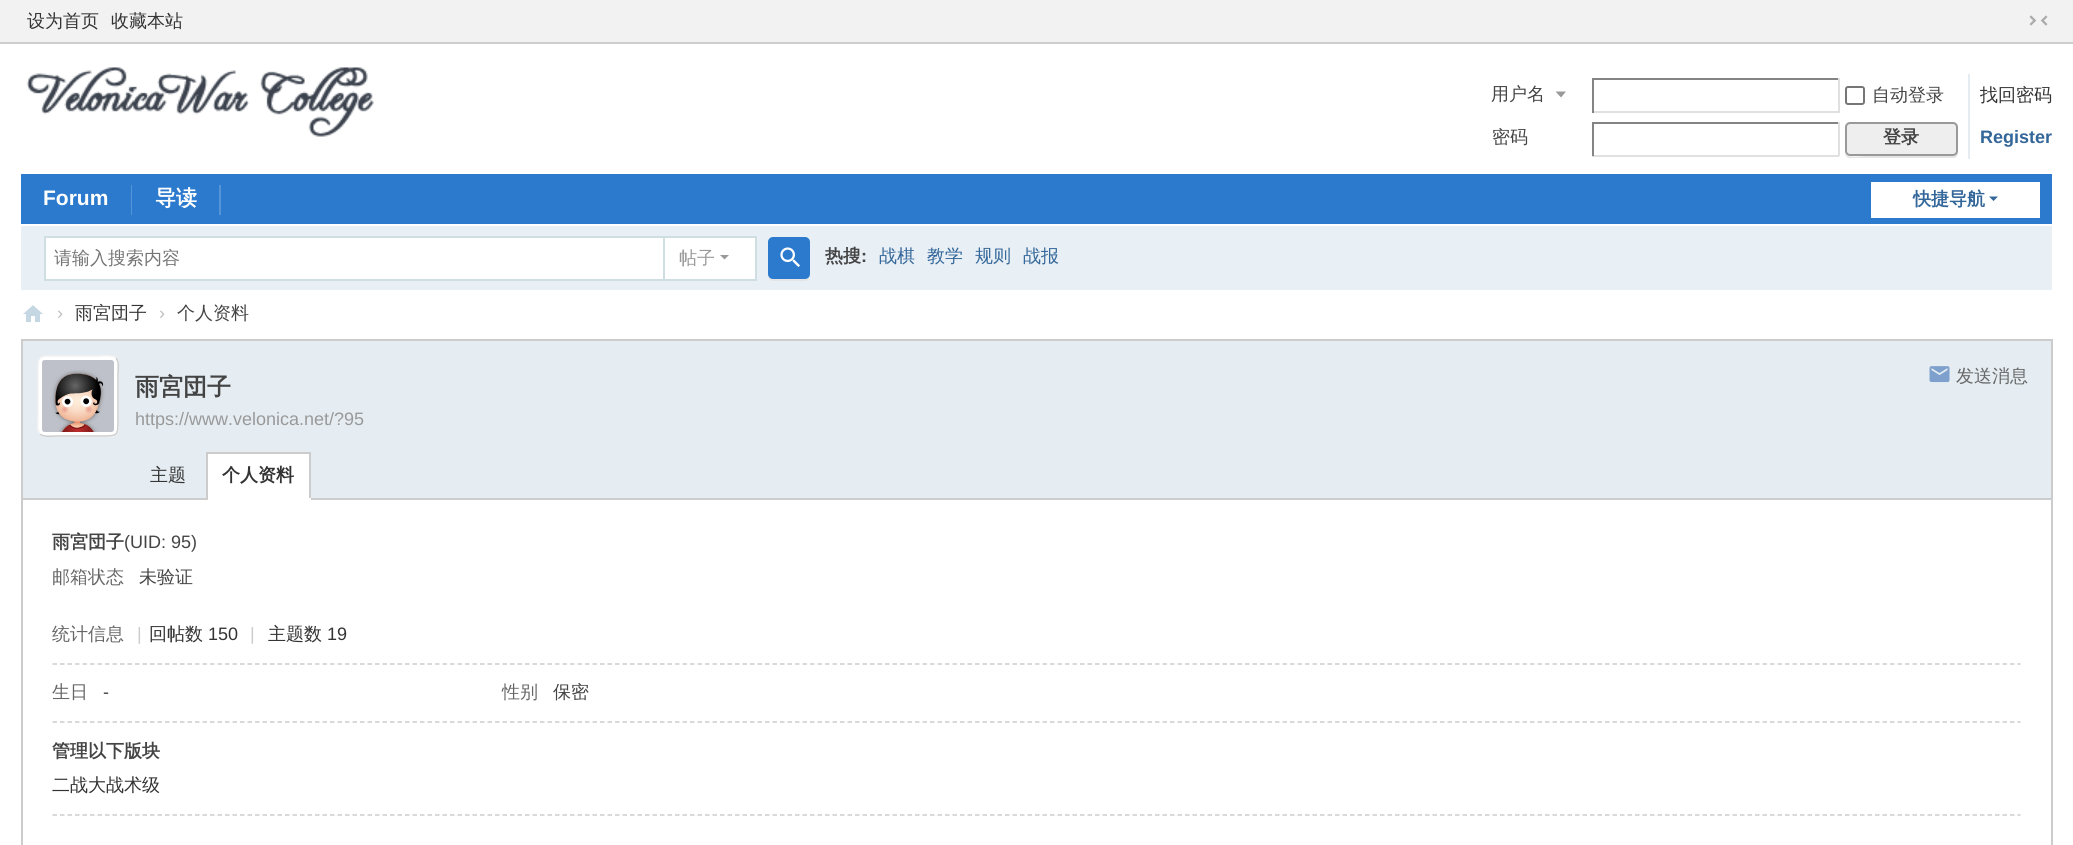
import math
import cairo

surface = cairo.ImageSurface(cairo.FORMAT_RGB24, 2073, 845)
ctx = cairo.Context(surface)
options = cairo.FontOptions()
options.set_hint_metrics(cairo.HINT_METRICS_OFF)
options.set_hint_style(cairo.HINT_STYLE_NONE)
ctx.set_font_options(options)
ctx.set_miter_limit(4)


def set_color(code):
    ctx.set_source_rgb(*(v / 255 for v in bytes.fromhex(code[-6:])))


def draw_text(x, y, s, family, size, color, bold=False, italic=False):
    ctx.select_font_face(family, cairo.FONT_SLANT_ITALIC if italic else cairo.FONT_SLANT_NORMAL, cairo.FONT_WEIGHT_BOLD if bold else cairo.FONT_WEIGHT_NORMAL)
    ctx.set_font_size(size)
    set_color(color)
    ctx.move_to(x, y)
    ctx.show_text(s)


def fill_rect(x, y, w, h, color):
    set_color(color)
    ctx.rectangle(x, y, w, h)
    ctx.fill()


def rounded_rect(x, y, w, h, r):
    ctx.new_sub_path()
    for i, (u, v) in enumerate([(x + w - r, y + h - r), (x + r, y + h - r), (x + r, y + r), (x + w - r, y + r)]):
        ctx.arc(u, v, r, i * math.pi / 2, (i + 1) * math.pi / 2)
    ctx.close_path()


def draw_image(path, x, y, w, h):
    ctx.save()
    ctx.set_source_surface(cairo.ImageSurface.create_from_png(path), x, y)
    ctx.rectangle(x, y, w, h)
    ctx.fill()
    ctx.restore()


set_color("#ffffff")
ctx.paint()
fill_rect(0, 0, 2073, 42, "#f2f2f2")
fill_rect(0, 42, 2073, 2, "#cdcdcd")
draw_text(27, 27, "设为首页", "WenQuanYi Zen Hei Medium", 18, "#333333")
draw_text(111, 27, "收藏本站", "WenQuanYi Zen Hei Medium", 18, "#333333")
draw_image("assets/img1.png", 2029, 15, 19, 11)
draw_image("assets/img2.png", 26, 67, 348, 70)
set_color("#999999")
ctx.new_path()
ctx.move_to(1566, 91.5)
ctx.line_to(1555.5, 91.5)
ctx.line_to(1561, 97.5)
ctx.close_path()
ctx.fill()
draw_text(1491, 100, "用户名", "WenQuanYi Zen Hei Medium", 18, "#444444")
fill_rect(1592, 78, 247, 2, "#848484")
fill_rect(1838, 78, 2, 35, "#e0e0e0")
fill_rect(1592, 111, 247, 2, "#e0e0e0")
fill_rect(1592, 78, 2, 35, "#848484")
rounded_rect(1846, 87, 18, 17, 2)
set_color("#767676")
ctx.stroke()
draw_text(1872, 101, "自动登录", "WenQuanYi Zen Hei Medium", 18, "#444444")
draw_text(1980, 101, "找回密码", "WenQuanYi Zen Hei Medium", 18, "#333333")
draw_text(1492, 143, "密码", "WenQuanYi Zen Hei Medium", 18, "#444444")
fill_rect(1592, 122, 247, 2, "#848484")
fill_rect(1838, 122, 2, 34, "#e0e0e0")
fill_rect(1592, 155, 247, 2, "#e0e0e0")
fill_rect(1592, 122, 2, 34, "#848484")
fill_rect(1968, 74, 2, 85, "#e5edf2")
set_color("#e5e5e5")
ctx.new_path()
ctx.move_to(1845, 152)
ctx.line_to(1845, 153)
ctx.curve_to(1845, 156, 1847, 158, 1850, 158)
ctx.line_to(1953, 158)
ctx.curve_to(1956, 158, 1958, 156, 1958, 153)
ctx.line_to(1958, 128)
ctx.line_to(1957, 126)
ctx.line_to(1958, 147)
ctx.curve_to(1958, 151, 1958, 156, 1953, 156)
ctx.line_to(1867, 156)
ctx.curve_to(1858, 156, 1845, 159, 1845, 152)
ctx.close_path()
ctx.fill()
set_color("#eeeeee")
rounded_rect(1846, 123, 111, 32, 4)
ctx.fill_preserve()
set_color("#999999")
ctx.stroke()
draw_text(1883, 143, "登录", "WenQuanYi Zen Hei", 18, "#444444", bold=True)
draw_text(1980, 143, "Register", "Liberation Sans", 18, "#336699", bold=True)
fill_rect(21, 174, 2031, 50, "#2b7acd")
fill_rect(131, 185, 1, 30, "#5595d7")
draw_text(43, 205, "Forum", "Liberation Sans", 21, "#ffffff", bold=True)
fill_rect(219, 185, 2, 30, "#5595d7")
draw_text(155, 205, "导读", "WenQuanYi Zen Hei", 21, "#ffffff", bold=True)
fill_rect(1871, 182, 169, 36, "#ffffff")
draw_text(1913, 205, "快捷导航", "WenQuanYi Zen Hei", 18, "#336699", bold=True)
ctx.new_path()
ctx.move_to(1989, 196.5)
ctx.line_to(1998, 196.5)
ctx.line_to(1993.5, 201)
ctx.close_path()
ctx.fill()
fill_rect(21, 226, 2031, 64, "#e8eff5")
fill_rect(662, 236, 94, 2, "#cfdee3")
fill_rect(755, 236, 2, 45, "#cfdee3")
fill_rect(662, 279, 94, 2, "#cfdee3")
set_color("#ffffff")
ctx.rectangle(45, 237, 619, 43)
ctx.fill_preserve()
set_color("#cfdee3")
ctx.stroke()
draw_text(54, 264, "请输入搜索内容", "WenQuanYi Zen Hei Medium", 18, "#757575")
fill_rect(665, 238, 90, 41, "#ffffff")
draw_text(679, 264, "帖子", "WenQuanYi Zen Hei Medium", 18, "#999999")
ctx.new_path()
ctx.move_to(720, 255)
ctx.line_to(729, 255)
ctx.line_to(724.5, 259.5)
ctx.close_path()
ctx.fill()
set_color("#e5e5e5")
ctx.new_path()
ctx.move_to(768, 274)
ctx.curve_to(768, 282, 772, 281, 778, 281)
ctx.line_to(800, 281)
ctx.curve_to(806, 281, 810, 282, 810, 274)
ctx.curve_to(810, 277, 808, 279, 806, 279)
ctx.line_to(772, 279)
ctx.curve_to(770, 279, 768, 277, 768, 274)
ctx.close_path()
ctx.fill()
set_color("#2b7acd")
rounded_rect(768, 237, 42, 42, 5)
ctx.fill()
draw_image("assets/img3.png", 780, 247, 20, 20)
draw_text(825, 262, "热搜", "WenQuanYi Zen Hei", 18, "#444444", bold=True)
draw_text(861, 262, ":", "Liberation Sans", 18, "#444444", bold=True)
draw_text(879, 262, "战棋", "WenQuanYi Zen Hei Medium", 18, "#336699")
draw_text(927, 262, "教学", "WenQuanYi Zen Hei Medium", 18, "#336699")
draw_text(975, 262, "规则", "WenQuanYi Zen Hei Medium", 18, "#336699")
draw_text(1023, 262, "战报", "WenQuanYi Zen Hei Medium", 18, "#336699")
draw_image("assets/img4.png", 23, 305, 20, 17)
draw_text(57, 319, "›", "Liberation Sans", 18, "#bdbdbd")
draw_text(75, 319, "雨宮団子", "WenQuanYi Zen Hei Medium", 18, "#333333")
draw_text(159, 319, "›", "Liberation Sans", 18, "#bdbdbd")
draw_text(177, 319, "个人资料", "WenQuanYi Zen Hei Medium", 18, "#444444")
fill_rect(23, 341, 2028, 157, "#e5edf2")
fill_rect(21, 339, 2031, 2, "#cccccc")
fill_rect(2051, 339, 2, 506, "#cccccc")
fill_rect(21, 339, 2, 506, "#cccccc")
set_color("#ffffff")
rounded_rect(38, 356, 81, 81, 8)
ctx.fill()
ctx.new_path()
ctx.move_to(116, 358)
ctx.curve_to(119.5, 362, 118, 370.5, 118, 374)
ctx.line_to(118, 418)
ctx.curve_to(118, 436.5, 118.5, 436, 100, 436)
ctx.line_to(56, 436)
ctx.curve_to(52.5, 436, 44, 437.5, 40, 434)
set_color("#cdcdcd")
ctx.set_line_width(1.5)
ctx.stroke()
ctx.new_path()
ctx.move_to(40, 434)
ctx.curve_to(36.5, 430, 38, 421.5, 38, 418)
ctx.line_to(38, 374)
ctx.curve_to(38, 355.5, 37.5, 356, 56, 356)
ctx.line_to(100, 356)
ctx.curve_to(103.5, 356, 112, 354.5, 116, 358)
set_color("#f2f2f2")
ctx.stroke()
draw_image("assets/img5.png", 42, 360, 72, 72)
draw_text(135, 395, "雨宮団子", "WenQuanYi Zen Hei", 24, "#444444", bold=True)
draw_text(135, 425, "https://www.velonica.net/?95", "Liberation Sans", 18, "#999999")
draw_image("assets/img6.png", 1929, 366, 21, 17)
draw_text(1956, 382, "发送消息", "WenQuanYi Zen Hei Medium", 18, "#666666")
fill_rect(23, 498, 2028, 2, "#cdcdcd")
draw_text(150, 481, "主题", "WenQuanYi Zen Hei Medium", 18, "#333333")
fill_rect(208, 454, 101, 44, "#ffffff")
fill_rect(206, 452, 105, 2, "#cccccc")
fill_rect(309, 452, 2, 48, "#cccccc")
fill_rect(206, 498, 105, 2, "#ffffff")
fill_rect(206, 452, 2, 48, "#cccccc")
draw_text(222, 481, "个人资料", "WenQuanYi Zen Hei", 18, "#333333", bold=True)
ctx.new_path()
ctx.move_to(52.5, 722)
ctx.line_to(2020.5, 722)
set_color("#cdcdcd")
ctx.set_dash([4.5, 3])
ctx.stroke()
draw_text(52, 548, "雨宮団子", "WenQuanYi Zen Hei", 18, "#444444", bold=True)
draw_text(124, 548, "(UID: 95)", "Liberation Sans", 18, "#444444")
draw_text(52, 583, "邮箱状态", "WenQuanYi Zen Hei Medium", 18, "#666666")
draw_text(139, 583, "未验证", "WenQuanYi Zen Hei Medium", 18, "#444444")
ctx.new_path()
ctx.move_to(52.5, 664)
ctx.line_to(2020.5, 664)
set_color("#cdcdcd")
ctx.stroke()
draw_text(52, 640, "统计信息", "WenQuanYi Zen Hei Medium", 18, "#666666")
draw_text(137, 640, "|", "Liberation Sans", 18, "#cccccc")
draw_text(149, 640, "回帖数", "WenQuanYi Zen Hei Medium", 18, "#333333")
draw_text(208, 640, "150", "Liberation Sans", 18, "#333333")
draw_text(250, 640, "|", "Liberation Sans", 18, "#cccccc")
draw_text(268, 640, "主题数", "WenQuanYi Zen Hei Medium", 18, "#333333")
draw_text(327, 640, "19", "Liberation Sans", 18, "#333333")
draw_text(52, 698, "生日", "WenQuanYi Zen Hei Medium", 18, "#666666")
draw_text(103, 698, "-", "Liberation Sans", 18, "#444444")
draw_text(502, 698, "性别", "WenQuanYi Zen Hei Medium", 18, "#666666")
draw_text(553, 698, "保密", "WenQuanYi Zen Hei Medium", 18, "#444444")
ctx.new_path()
ctx.move_to(52.5, 815)
ctx.line_to(2020.5, 815)
set_color("#cdcdcd")
ctx.stroke()
draw_text(52, 757, "管理以下版块", "WenQuanYi Zen Hei", 18, "#444444", bold=True)
draw_text(52, 791, "二战大战术级", "WenQuanYi Zen Hei Medium", 18, "#333333")
surface.write_to_png("output.png")
